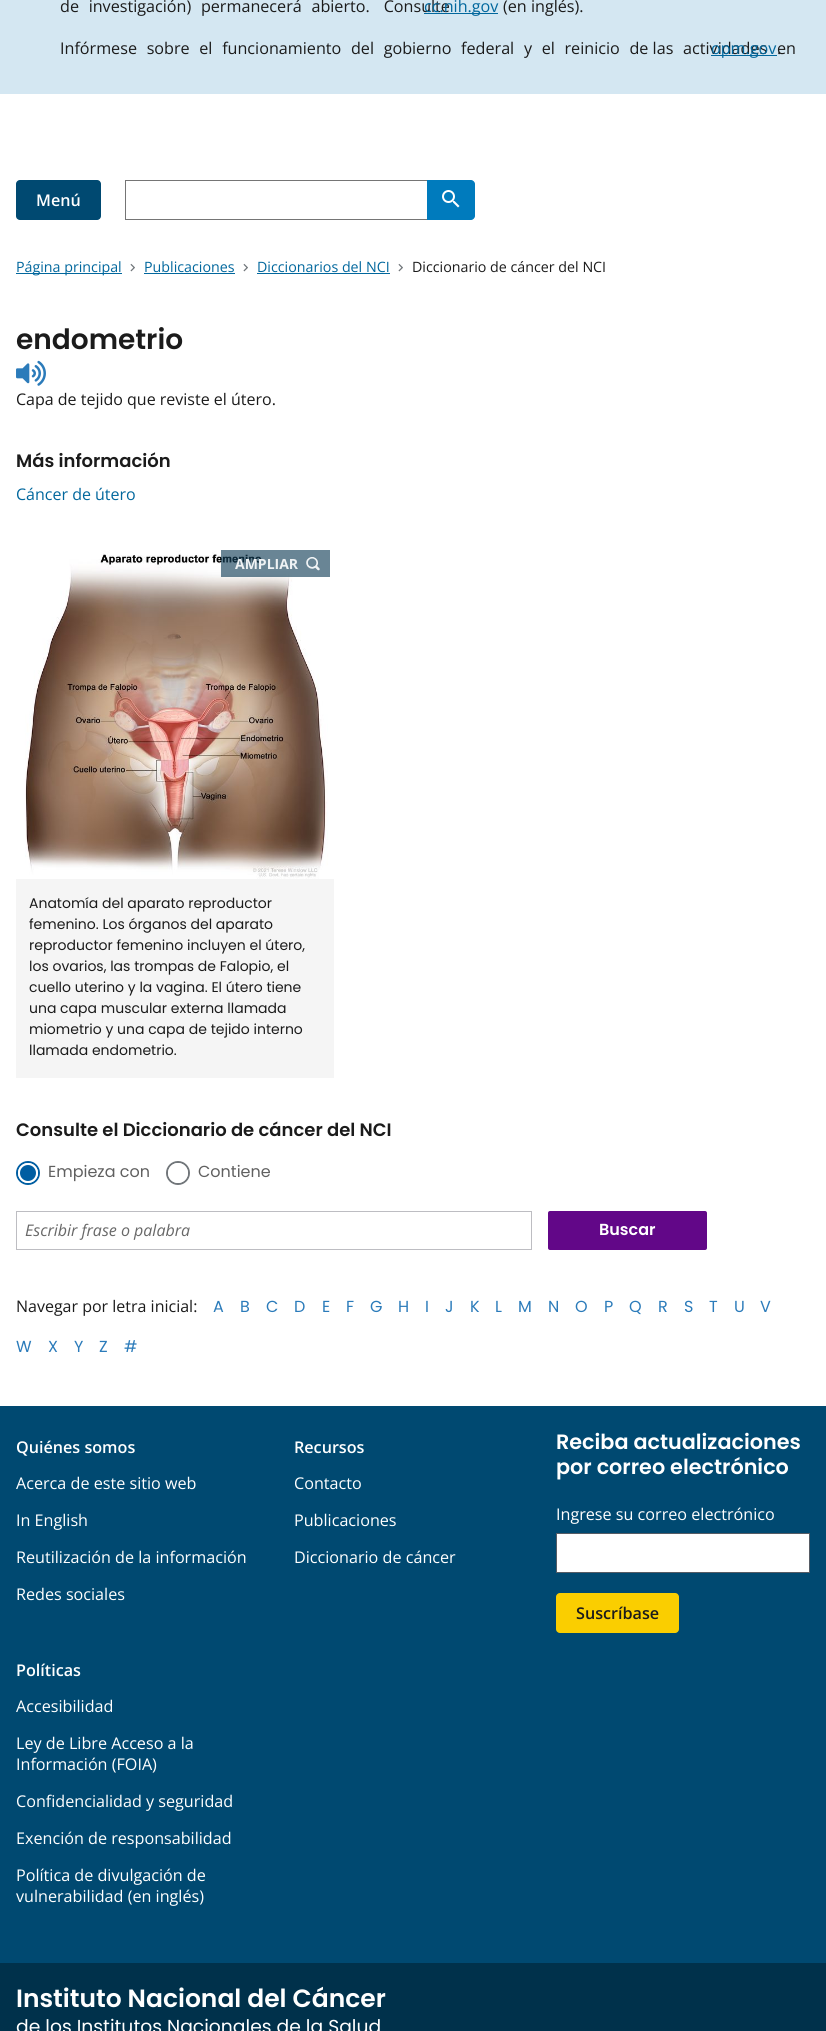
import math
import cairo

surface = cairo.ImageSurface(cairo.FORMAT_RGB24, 826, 2031)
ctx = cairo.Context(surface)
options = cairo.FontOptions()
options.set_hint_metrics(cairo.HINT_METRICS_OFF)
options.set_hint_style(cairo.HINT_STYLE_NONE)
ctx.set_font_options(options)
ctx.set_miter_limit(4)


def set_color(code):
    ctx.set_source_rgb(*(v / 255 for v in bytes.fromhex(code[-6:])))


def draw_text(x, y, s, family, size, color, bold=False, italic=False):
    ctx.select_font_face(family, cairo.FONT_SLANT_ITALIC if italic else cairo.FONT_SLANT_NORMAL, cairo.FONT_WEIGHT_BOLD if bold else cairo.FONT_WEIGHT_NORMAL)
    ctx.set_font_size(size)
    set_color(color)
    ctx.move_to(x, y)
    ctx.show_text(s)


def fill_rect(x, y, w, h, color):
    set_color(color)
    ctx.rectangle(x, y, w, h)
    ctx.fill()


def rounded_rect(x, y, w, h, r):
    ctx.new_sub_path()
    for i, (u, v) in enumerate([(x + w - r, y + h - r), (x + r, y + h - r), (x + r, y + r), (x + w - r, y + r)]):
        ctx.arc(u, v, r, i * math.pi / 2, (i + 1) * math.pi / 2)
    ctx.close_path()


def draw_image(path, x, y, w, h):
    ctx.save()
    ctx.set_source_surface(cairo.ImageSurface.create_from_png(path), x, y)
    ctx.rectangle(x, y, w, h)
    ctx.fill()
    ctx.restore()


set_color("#ffffff")
ctx.paint()
fill_rect(0, 0, 826, 94, "#d4e7f2")
draw_text(60, 12, "de investigación) permanecerá abierto.  Consulte", "Open Sans", 16.15, "#1b1b1b")
fill_rect(424, 13, 74, 1, "#01679d")
draw_text(424, 12, "cc.nih.gov", "Open Sans", 16.15, "#01679d")
draw_text(503, 12, "(en inglés).", "Open Sans", 16.15, "#1b1b1b")
draw_text(60, 54, "Infórmese sobre el funcionamiento del gobierno federal y el reinicio de las actividades en", "Open Sans", 16.15, "#1b1b1b")
fill_rect(711, 55, 66, 1, "#01679d")
draw_text(711, 54, "opm.gov", "Open Sans", 16.15, "#01679d")
draw_text(777, 54, ".", "Open Sans", 16.15, "#1b1b1b")
set_color("#004971")
rounded_rect(16, 180, 85, 40, 4)
ctx.fill()
draw_text(36, 206, "Menú", "Open Sans SemiBold", 16.15, "#ffffff")
fill_rect(125, 180, 302, 1, "#757575")
fill_rect(125, 219, 302, 1, "#757575")
fill_rect(125, 180, 1, 40, "#757575")
set_color("#007bbd")
ctx.new_path()
ctx.move_to(427, 180)
ctx.line_to(471, 180)
ctx.curve_to(473, 180, 475, 182, 475, 184)
ctx.line_to(475, 216)
ctx.curve_to(475, 218, 473, 220, 471, 220)
ctx.line_to(427, 220)
ctx.close_path()
ctx.fill()
draw_image("assets/img1.png", 442, 190, 18, 18)
fill_rect(16, 273, 106, 1, "#01679d")
draw_text(16, 272, "Página principal", "Open Sans", 14.25, "#01679d")
draw_image("assets/img2.png", 130, 263, 5, 9)
draw_text(144, 272, "Publicaciones", "Open Sans", 14.25, "#01679d")
fill_rect(144, 273, 91, 1, "#01679d")
draw_image("assets/img2.png", 243, 263, 5, 9)
draw_text(257, 272, "Diccionarios del NCI", "Open Sans", 14.25, "#01679d")
fill_rect(257, 273, 133, 1, "#01679d")
draw_image("assets/img2.png", 398, 263, 5, 9)
draw_text(412, 272, "Diccionario de cáncer del NCI", "Open Sans", 14.25, "#1b1b1b")
draw_text(16, 349, "endometrio", "Poppins SemiBold", 28, "#1b1b1b")
draw_image("assets/img3.png", 16, 360, 30, 26)
draw_text(16, 405, "Capa de tejido que reviste el útero.", "Open Sans", 16, "#1b1b1b")
draw_text(16, 467, "Más información", "Poppins SemiBold", 18, "#1b1b1b")
draw_text(16, 500, "Cáncer de útero", "Open Sans", 16, "#01679d")
draw_image("assets/img4.png", 16, 550, 318, 329)
ctx.set_source_rgba(0.071, 0.243, 0.345, 0.63)
ctx.rectangle(221, 550, 109, 27)
ctx.fill()
draw_text(235, 569, "AMPLIAR", "Open Sans", 14, "#eff2f4", bold=True)
draw_image("assets/img5.png", 306, 557, 14, 14)
fill_rect(16, 879, 318, 199, "#f5f5f5")
draw_text(29, 908, "Anatomía del aparato reproductor", "Poppins", 14, "#1b1b1b")
draw_text(29, 929, "femenino. Los órganos del aparato", "Poppins", 14, "#1b1b1b")
draw_text(29, 950, "reproductor femenino incluyen el útero,", "Poppins", 14, "#1b1b1b")
draw_text(29, 971, "los ovarios, las trompas de Falopio, el", "Poppins", 14, "#1b1b1b")
draw_text(29, 992, "cuello uterino y la vagina. El útero tiene", "Poppins", 14, "#1b1b1b")
draw_text(29, 1013, "una capa muscular externa llamada", "Poppins", 14, "#1b1b1b")
draw_text(29, 1034, "miometrio y una capa de tejido interno", "Poppins", 14, "#1b1b1b")
draw_text(29, 1055, "llamada endometrio.", "Poppins", 14, "#1b1b1b")
draw_text(16, 1136, "Consulte el Diccionario de cáncer del NCI", "Poppins SemiBold", 18, "#1b1b1b")
ctx.new_path()
ctx.arc(28, 1173, 11, 0, 2 * math.pi)
set_color("#005ea2")
ctx.stroke()
ctx.arc(28, 1173, 9, 0, 2 * math.pi)
ctx.fill_preserve()
set_color("#ffffff")
ctx.stroke()
draw_text(48, 1177, "Empieza con", "Poppins", 16, "#606060")
ctx.new_path()
ctx.arc(178, 1173, 11, 0, 2 * math.pi)
set_color("#71767a")
ctx.stroke()
set_color("#ffffff")
ctx.arc(178, 1173, 10, 0, 2 * math.pi)
ctx.fill()
draw_text(198, 1177, "Contiene", "Poppins", 16, "#606060")
ctx.rectangle(16.5, 1211.5, 515, 38)
set_color("#bdbdc2")
ctx.set_line_width(1)
ctx.stroke()
draw_text(25, 1236, "Escribir frase o palabra", "Open Sans", 16, "#686868", italic=True)
set_color("#620788")
rounded_rect(548, 1211, 159, 39, 2)
ctx.fill()
draw_text(599, 1235, "Buscar", "Poppins SemiBold", 16, "#ffffff")
draw_text(16, 1312, "Navegar por letra inicial:", "Open Sans", 16, "#1b1b1b")
draw_text(213, 1312, "A", "Poppins", 16, "#2b7bba")
draw_text(240, 1312, "B", "Poppins", 16, "#2b7bba")
draw_text(266, 1312, "C", "Poppins", 16, "#2b7bba")
draw_text(294, 1312, "D", "Poppins", 16, "#2b7bba")
draw_text(322, 1312, "E", "Poppins", 16, "#2b7bba")
draw_text(346, 1312, "F", "Poppins", 16, "#2b7bba")
draw_text(370, 1312, "G", "Poppins", 16, "#2b7bba")
draw_text(398, 1312, "H", "Poppins", 16, "#2b7bba")
draw_text(425, 1312, "I", "Poppins", 16, "#2b7bba")
draw_text(445, 1312, "J", "Poppins", 16, "#2b7bba")
draw_text(470, 1312, "K", "Poppins", 16, "#2b7bba")
draw_text(495, 1312, "L", "Poppins", 16, "#2b7bba")
draw_text(518, 1312, "M", "Poppins", 16, "#2b7bba")
draw_text(548, 1312, "N", "Poppins", 16, "#2b7bba")
draw_text(575, 1312, "O", "Poppins", 16, "#2b7bba")
draw_text(604, 1312, "P", "Poppins", 16, "#2b7bba")
draw_text(629, 1312, "Q", "Poppins", 16, "#2b7bba")
draw_text(658, 1312, "R", "Poppins", 16, "#2b7bba")
draw_text(684, 1312, "S", "Poppins", 16, "#2b7bba")
draw_text(709, 1312, "T", "Poppins", 16, "#2b7bba")
draw_text(734, 1312, "U", "Poppins", 16, "#2b7bba")
draw_text(760, 1312, "V", "Poppins", 16, "#2b7bba")
draw_text(16, 1352, "W", "Poppins", 16, "#2b7bba")
draw_text(48, 1352, "X", "Poppins", 16, "#2b7bba")
draw_text(74, 1352, "Y", "Poppins", 16, "#2b7bba")
draw_text(99, 1352, "Z", "Poppins", 16, "#2b7bba")
draw_text(124, 1352, "#", "Poppins", 16, "#2b7bba")
fill_rect(0, 1406, 826, 557, "#004971")
draw_text(16, 1453, "Quiénes somos", "Open Sans SemiBold", 16.15, "#ffffff")
draw_text(16, 1489, "Acerca de este sitio web", "Open Sans", 16.15, "#ffffff")
draw_text(16, 1526, "In English", "Open Sans", 16.15, "#ffffff")
draw_text(16, 1563, "Reutilización de la información", "Open Sans", 16.15, "#ffffff")
draw_text(16, 1600, "Redes sociales", "Open Sans", 16.15, "#ffffff")
draw_text(294, 1453, "Recursos", "Open Sans SemiBold", 16.15, "#ffffff")
draw_text(294, 1489, "Contacto", "Open Sans", 16.15, "#ffffff")
draw_text(294, 1526, "Publicaciones", "Open Sans", 16.15, "#ffffff")
draw_text(294, 1563, "Diccionario de cáncer", "Open Sans", 16.15, "#ffffff")
draw_text(16, 1676, "Políticas", "Open Sans SemiBold", 16.15, "#ffffff")
draw_text(16, 1712, "Accesibilidad", "Open Sans", 16.15, "#ffffff")
draw_text(16, 1749, "Ley de Libre Acceso a la", "Open Sans", 16.15, "#ffffff")
draw_text(16, 1770, "Información (FOIA)", "Open Sans", 16.15, "#ffffff")
draw_text(16, 1807, "Confidencialidad y seguridad", "Open Sans", 16.15, "#ffffff")
draw_text(16, 1844, "Exención de responsabilidad", "Open Sans", 16.15, "#ffffff")
draw_text(16, 1881, "Política de divulgación de", "Open Sans", 16.15, "#ffffff")
draw_text(16, 1902, "vulnerabilidad (en inglés)", "Open Sans", 16.15, "#ffffff")
draw_text(556, 1449, "Reciba actualizaciones", "Poppins SemiBold", 20.75, "#ffffff")
draw_text(556, 1474, "por correo electrónico", "Poppins SemiBold", 20.75, "#ffffff")
draw_text(556, 1520, "Ingrese su correo electrónico", "Open Sans", 16.15, "#ffffff")
ctx.rectangle(556.5, 1533.5, 253, 39)
ctx.fill_preserve()
set_color("#565c65")
ctx.stroke()
set_color("#face00")
rounded_rect(556, 1593, 123, 40, 4)
ctx.fill()
draw_text(576, 1619, "Suscríbase", "Open Sans SemiBold", 16.15, "#1b1b1b")
fill_rect(0, 1963, 826, 68, "#00314b")
draw_text(16, 2007, "Instituto Nacional del Cáncer", "Poppins SemiBold", 25, "#ffffff")
draw_text(16, 2033, "de los Institutos Nacionales de la Salud", "Poppins", 18.75, "#ffffff")
surface.write_to_png("output.png")
